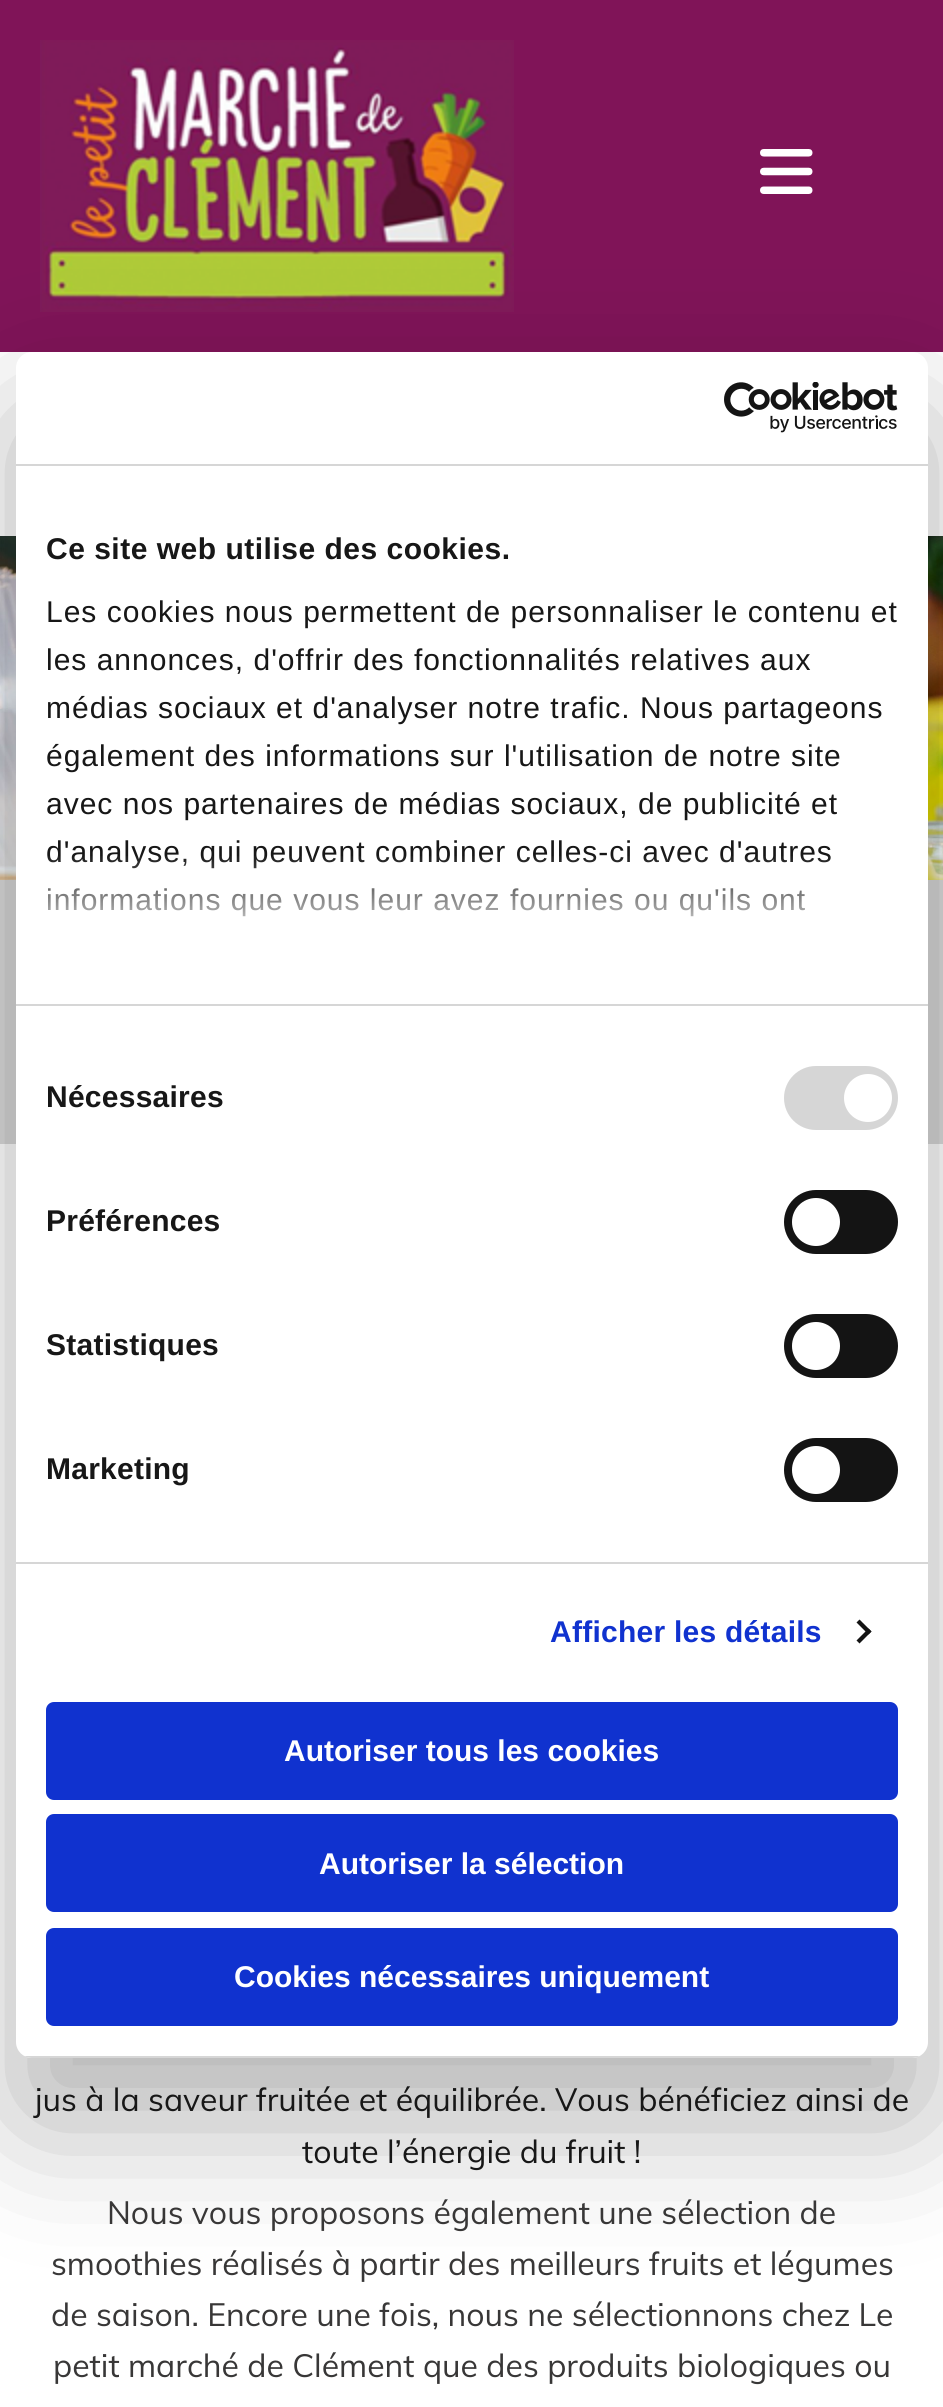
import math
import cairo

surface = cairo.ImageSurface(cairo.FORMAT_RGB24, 943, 2407)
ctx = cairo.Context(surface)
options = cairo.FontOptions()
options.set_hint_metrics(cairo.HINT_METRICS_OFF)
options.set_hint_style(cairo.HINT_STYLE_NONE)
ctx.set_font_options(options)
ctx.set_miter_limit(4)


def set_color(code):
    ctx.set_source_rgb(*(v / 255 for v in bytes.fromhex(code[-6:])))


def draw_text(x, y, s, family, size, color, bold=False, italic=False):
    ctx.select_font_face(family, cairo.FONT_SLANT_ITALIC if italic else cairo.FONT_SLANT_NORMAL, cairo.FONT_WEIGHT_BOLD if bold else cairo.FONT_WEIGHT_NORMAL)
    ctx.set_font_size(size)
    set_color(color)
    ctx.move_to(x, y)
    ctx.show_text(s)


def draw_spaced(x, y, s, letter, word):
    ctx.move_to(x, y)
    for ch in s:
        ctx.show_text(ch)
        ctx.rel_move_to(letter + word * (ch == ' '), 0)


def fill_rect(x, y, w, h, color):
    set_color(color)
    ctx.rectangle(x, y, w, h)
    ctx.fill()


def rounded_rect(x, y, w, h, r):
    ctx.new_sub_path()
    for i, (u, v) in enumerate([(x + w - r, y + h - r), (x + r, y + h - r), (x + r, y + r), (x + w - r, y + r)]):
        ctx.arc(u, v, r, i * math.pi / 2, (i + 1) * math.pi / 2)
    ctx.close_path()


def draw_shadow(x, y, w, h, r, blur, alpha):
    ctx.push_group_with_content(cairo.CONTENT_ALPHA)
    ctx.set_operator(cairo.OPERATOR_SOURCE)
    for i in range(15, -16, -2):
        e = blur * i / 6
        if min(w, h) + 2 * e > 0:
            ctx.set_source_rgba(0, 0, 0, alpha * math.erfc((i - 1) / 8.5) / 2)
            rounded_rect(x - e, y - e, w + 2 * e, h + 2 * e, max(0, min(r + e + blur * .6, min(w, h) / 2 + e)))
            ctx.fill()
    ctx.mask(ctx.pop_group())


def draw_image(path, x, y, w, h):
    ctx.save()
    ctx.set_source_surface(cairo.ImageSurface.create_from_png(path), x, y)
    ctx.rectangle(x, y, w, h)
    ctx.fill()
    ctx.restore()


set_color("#ffffff")
ctx.paint()
fill_rect(0, 0, 943, 352, "#801458")
draw_image("assets/img2.png", 40, 40, 474, 272)
fill_rect(0, 880, 943, 264, "#d9d9d9")
draw_image("assets/img4.png", 0, 536, 943, 344)
set_color("#000000")
draw_shadow(16, 416, 912, 1706, 16, 68, 0.3)
set_color("#ffffff")
rounded_rect(16, 352, 912, 1706, 16)
ctx.fill()
fill_rect(16, 464, 912, 2, "#d6d6d6")
draw_image("assets/img1.png", 724, 382, 174, 51)
fill_rect(16, 1004, 912, 2, "#d6d6d6")
ctx.select_font_face("Liberation Sans", cairo.FONT_SLANT_NORMAL, cairo.FONT_WEIGHT_BOLD)
ctx.set_font_size(30)
set_color("#171717")
draw_spaced(46, 559, "Ce site web utilise des cookies.", 0.5, 0)
ctx.select_font_face("Liberation Sans")
draw_spaced(46, 622, "Les cookies nous permettent de personnaliser le contenu et", 1, 0)
draw_spaced(46, 670, "les annonces, d'offrir des fonctionnalités relatives aux", 1, 0)
draw_spaced(46, 718, "médias sociaux et d'analyser notre trafic. Nous partageons", 1, 0)
draw_spaced(46, 766, "également des informations sur l'utilisation de notre site", 1, 0)
draw_spaced(46, 814, "avec nos partenaires de médias sociaux, de publicité et", 1, 0)
draw_spaced(46, 862, "d'analyse, qui peuvent combiner celles-ci avec d'autres", 1, 0)
draw_spaced(46, 910, "informations que vous leur avez fournies ou qu'ils ont", 1, 0)
gradient = cairo.LinearGradient(459, 1004, 459, 854)
gradient.add_color_stop_rgba(0, 1, 1, 1, 1)
gradient.add_color_stop_rgba(0.5, 1, 1, 1, 0.8)
gradient.add_color_stop_rgba(1, 1, 1, 1, 0)
ctx.set_source(gradient)
ctx.rectangle(47, 856, 784, 61)
ctx.fill()
fill_rect(16, 1562, 912, 2, "#d6d6d6")
ctx.select_font_face("Liberation Sans", cairo.FONT_SLANT_NORMAL, cairo.FONT_WEIGHT_BOLD)
set_color("#171717")
draw_spaced(46, 1107, "Nécessaires", 0.25, 0)
set_color("#d6d6d6")
rounded_rect(784, 1066, 114, 64, 32)
ctx.fill()
set_color("#ffffff")
ctx.arc(868, 1098, 24, 0, 2 * math.pi)
ctx.fill()
set_color("#171717")
draw_spaced(46, 1231, "Préférences", 0.25, 0)
set_color("#141414")
rounded_rect(784, 1190, 114, 64, 32)
ctx.fill()
set_color("#ffffff")
ctx.arc(816, 1222, 24, 0, 2 * math.pi)
ctx.fill()
set_color("#171717")
draw_spaced(46, 1355, "Statistiques", 0.25, 0)
set_color("#141414")
rounded_rect(784, 1314, 114, 64, 32)
ctx.fill()
set_color("#ffffff")
ctx.arc(816, 1346, 24, 0, 2 * math.pi)
ctx.fill()
set_color("#171717")
draw_spaced(46, 1479, "Marketing", 0.25, 0)
set_color("#141414")
rounded_rect(784, 1438, 114, 64, 32)
ctx.fill()
set_color("#ffffff")
ctx.arc(816, 1470, 24, 0, 2 * math.pi)
ctx.fill()
set_color("#1032cf")
draw_spaced(550, 1642, "Afficher les détails", 0.25, 0)
set_color("#141414")
ctx.new_path()
ctx.move_to(859.5, 1619.5)
ctx.line_to(871.5, 1631.5)
ctx.line_to(868.5, 1634.5)
ctx.line_to(856.5, 1622.5)
ctx.close_path()
ctx.fill()
ctx.new_path()
ctx.move_to(868.5, 1628.5)
ctx.line_to(871.5, 1631.5)
ctx.line_to(859.5, 1643.5)
ctx.line_to(856.5, 1640.5)
ctx.close_path()
ctx.fill()
ctx.save()
rounded_rect(16, 352, 912, 1706, 16)
ctx.clip()
fill_rect(16, 2056, 912, 2, "#d6d6d6")
ctx.restore()
set_color("#1032cf")
rounded_rect(48, 1704, 848, 94, 6)
ctx.fill_preserve()
ctx.set_line_width(4)
ctx.stroke()
draw_text(284, 1761, "Autoriser tous les cookies", "Liberation Sans", 30, "#ffffff", bold=True)
set_color("#1032cf")
rounded_rect(48, 1816, 848, 94, 6)
ctx.fill_preserve()
ctx.stroke()
draw_text(319, 1874, "Autoriser la sélection", "Liberation Sans", 30, "#ffffff", bold=True)
set_color("#1032cf")
rounded_rect(48, 1930, 848, 94, 6)
ctx.fill_preserve()
ctx.stroke()
draw_text(234, 1987, "Cookies nécessaires uniquement", "Liberation Sans", 30, "#ffffff", bold=True)
draw_image("assets/img3.png", 760, 149, 53, 45)
draw_text(35, 2111, "jus à la saveur fruitée et équilibrée. Vous bénéficiez ainsi de", "Muli", 32, "#171717")
draw_text(302, 2163, "toute l’énergie du fruit !", "Muli", 32, "#171717")
draw_text(107, 2224, "Nous vous proposons également une sélection de", "Muli", 32, "#383737")
draw_text(51, 2275, "smoothies réalisés à partir des meilleurs fruits et légumes", "Muli", 32, "#383737")
draw_text(51, 2326, "de saison. Encore une fois, nous ne sélectionnons chez Le", "Muli", 32, "#383737")
draw_text(53, 2377, "petit marché de Clément que des produits biologiques ou", "Muli", 32, "#383737")
surface.write_to_png("output.png")
